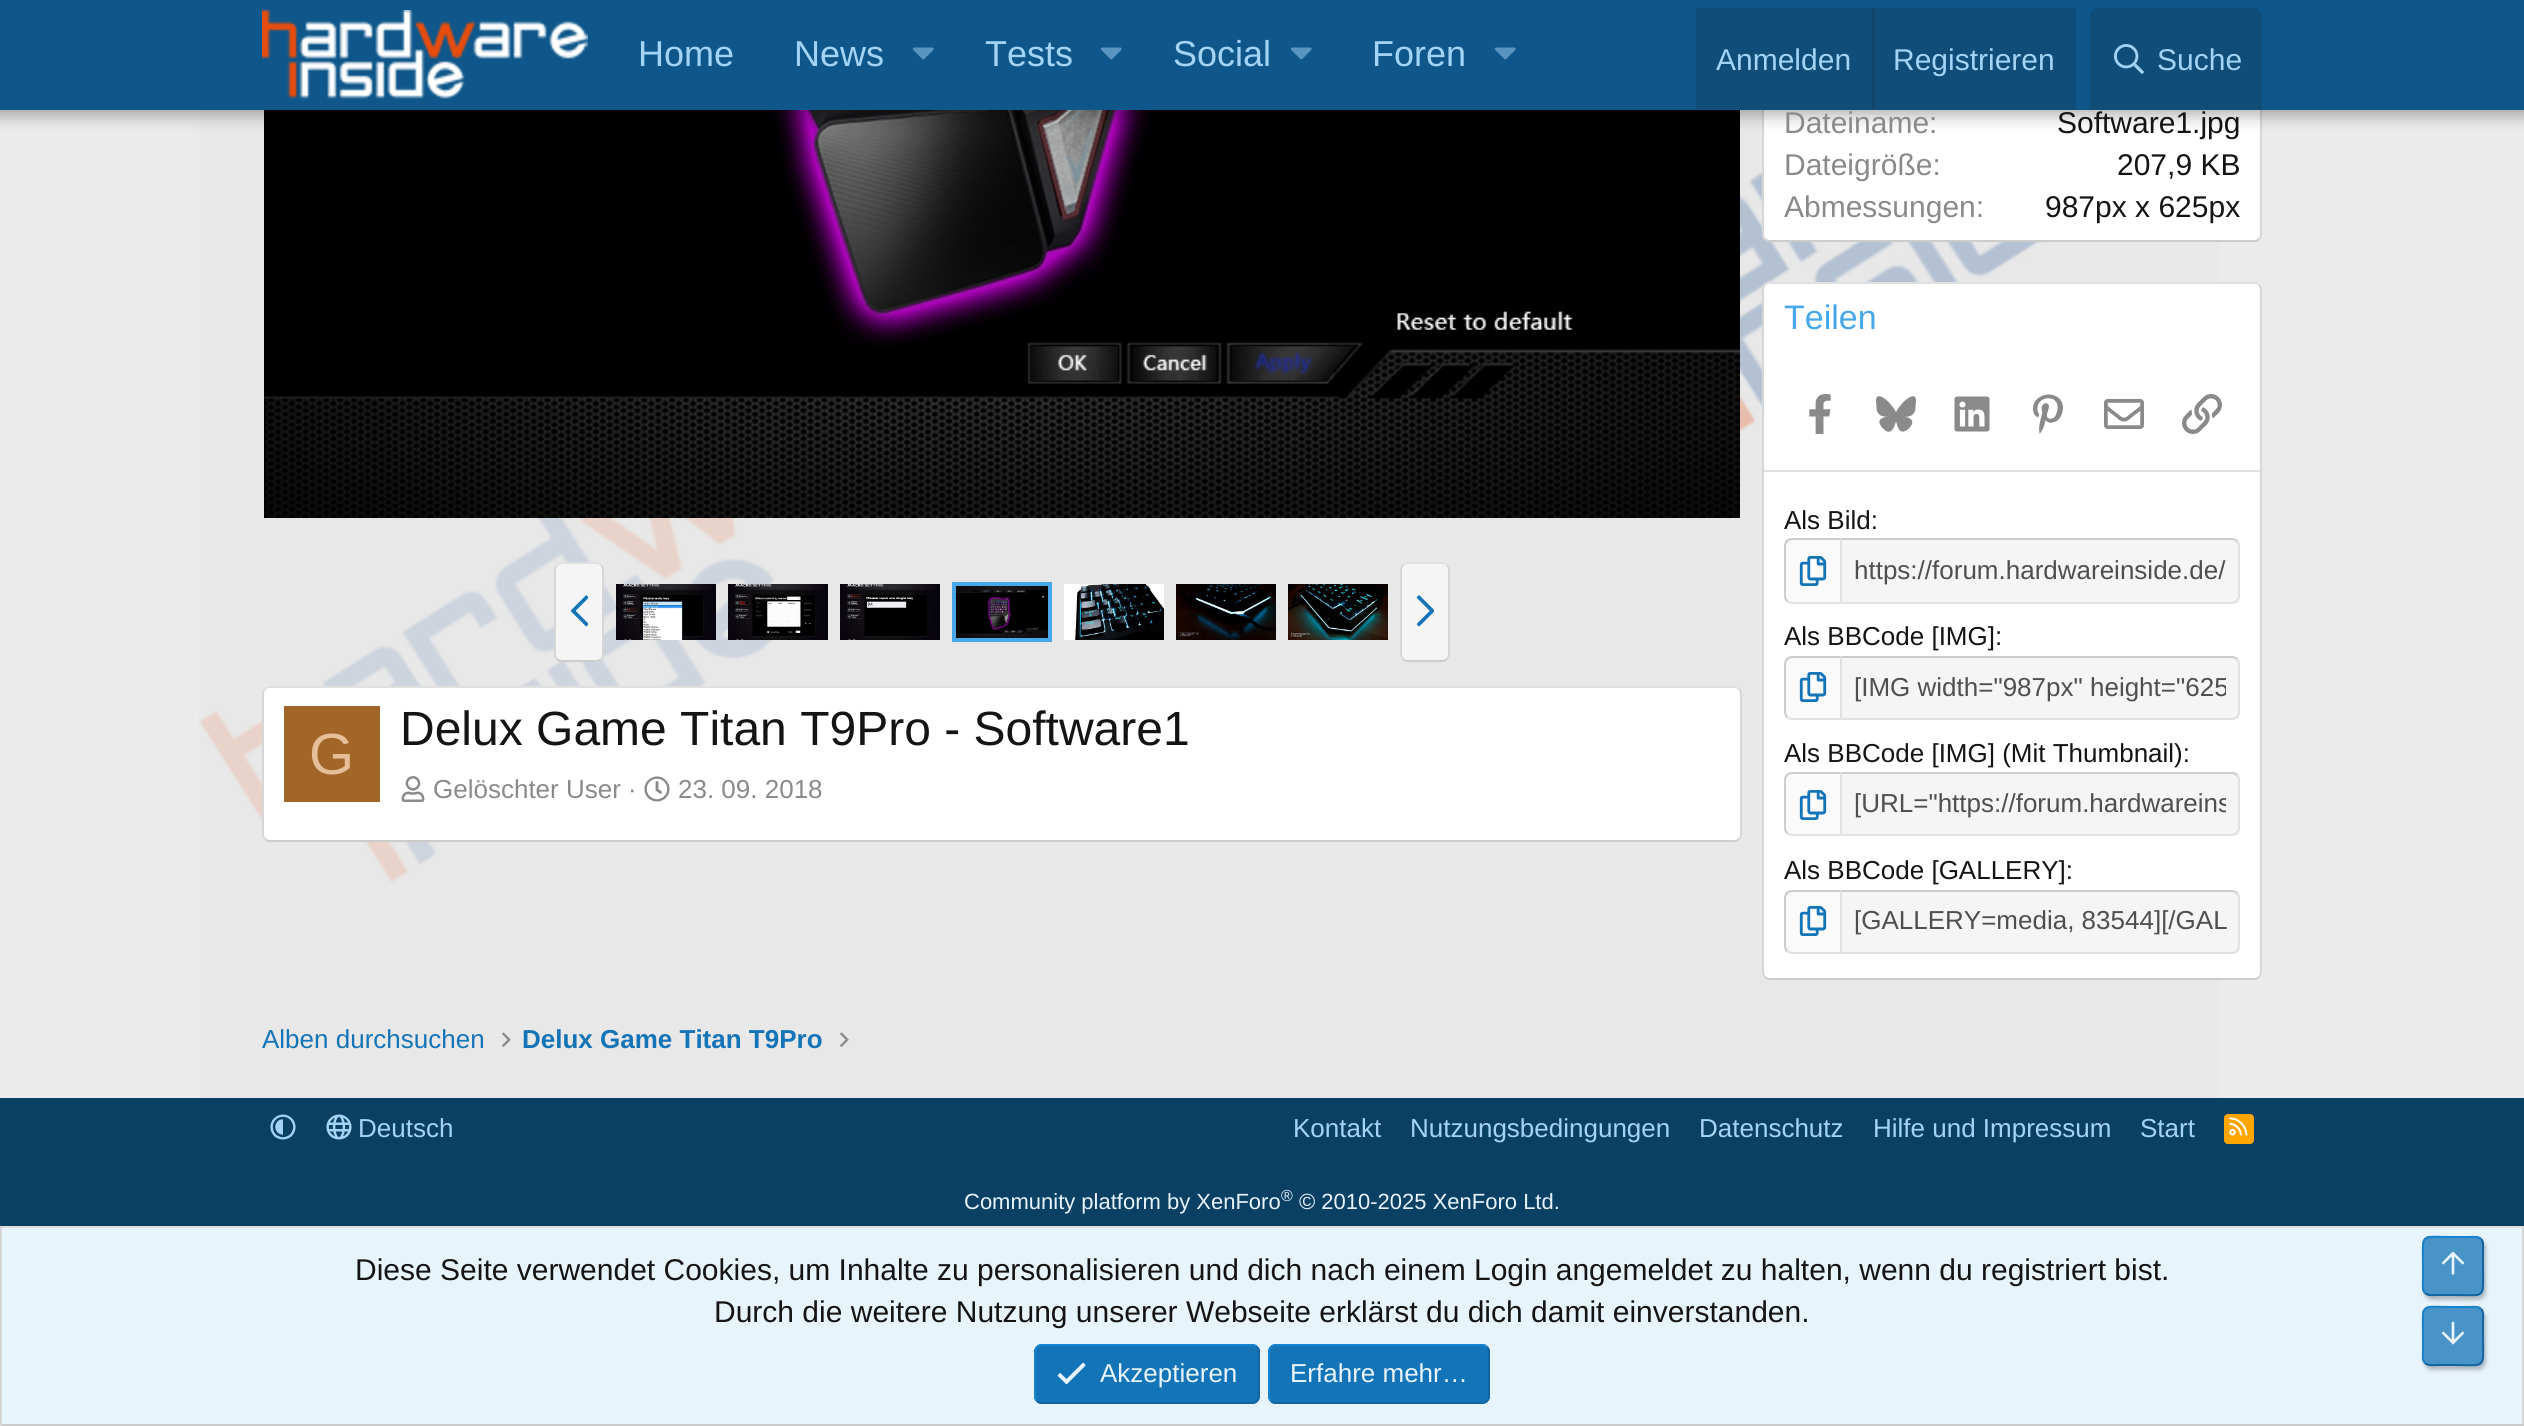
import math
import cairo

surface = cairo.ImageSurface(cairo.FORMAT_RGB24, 2524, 1426)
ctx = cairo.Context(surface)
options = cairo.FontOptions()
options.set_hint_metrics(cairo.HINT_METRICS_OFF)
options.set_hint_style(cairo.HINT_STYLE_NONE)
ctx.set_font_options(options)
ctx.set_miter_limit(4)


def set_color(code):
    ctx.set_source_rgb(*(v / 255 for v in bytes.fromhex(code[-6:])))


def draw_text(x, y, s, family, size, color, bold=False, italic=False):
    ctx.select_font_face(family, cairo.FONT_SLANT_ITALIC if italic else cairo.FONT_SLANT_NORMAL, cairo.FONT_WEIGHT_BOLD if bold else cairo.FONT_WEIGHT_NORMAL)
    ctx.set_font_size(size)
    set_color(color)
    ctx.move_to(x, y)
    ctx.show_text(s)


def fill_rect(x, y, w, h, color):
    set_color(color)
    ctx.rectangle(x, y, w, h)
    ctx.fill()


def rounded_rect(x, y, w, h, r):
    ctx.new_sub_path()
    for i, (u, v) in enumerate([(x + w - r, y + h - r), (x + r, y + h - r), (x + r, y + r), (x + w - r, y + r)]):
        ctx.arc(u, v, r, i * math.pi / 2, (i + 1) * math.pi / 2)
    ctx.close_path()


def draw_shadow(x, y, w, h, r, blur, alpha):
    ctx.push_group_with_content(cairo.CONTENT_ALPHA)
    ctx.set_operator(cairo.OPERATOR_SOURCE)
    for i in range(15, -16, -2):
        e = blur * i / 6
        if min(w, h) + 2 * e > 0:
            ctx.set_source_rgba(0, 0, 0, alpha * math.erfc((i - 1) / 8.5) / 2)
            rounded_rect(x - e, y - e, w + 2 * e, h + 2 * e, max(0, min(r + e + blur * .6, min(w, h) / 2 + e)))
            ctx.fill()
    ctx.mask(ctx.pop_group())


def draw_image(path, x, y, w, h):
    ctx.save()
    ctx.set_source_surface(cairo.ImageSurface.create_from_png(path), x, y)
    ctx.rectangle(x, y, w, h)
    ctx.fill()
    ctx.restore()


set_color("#ebebeb")
ctx.paint()
draw_image("assets/img1.png", 199, 110, 2020, 988)
draw_image("assets/img5.png", 264, 110, 1476, 408)
set_color("#ffffff")
rounded_rect(1762, 16, 500, 226, 8)
ctx.fill()
ctx.new_path()
ctx.move_to(2259, 19)
ctx.curve_to(2260.5, 20.5, 2261, 22, 2261, 24)
ctx.line_to(2261, 234)
ctx.curve_to(2261, 236, 2260.5, 237.5, 2259, 239)
set_color("#d6d6d6")
ctx.stroke()
ctx.new_path()
ctx.move_to(2259, 239)
ctx.curve_to(2257.5, 240.5, 2256, 241, 2254, 241)
ctx.line_to(1770, 241)
ctx.curve_to(1768, 241, 1766.5, 240.5, 1765, 239)
set_color("#cccccc")
ctx.stroke()
ctx.new_path()
ctx.move_to(1765, 239)
ctx.curve_to(1763.5, 237.5, 1763, 236, 1763, 234)
ctx.line_to(1763, 24)
ctx.curve_to(1763, 22, 1763.5, 20.5, 1765, 19)
set_color("#d6d6d6")
ctx.stroke()
set_color("#000000")
draw_shadow(-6, -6, 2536, 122, 0, 8, 0.3)
fill_rect(0, 0, 2524, 110, "#0f578a")
draw_image("assets/img2.png", 262, 10, 326, 89)
draw_text(638, 66, "Home", "Liberation Sans", 36, "#a3d4f5")
draw_text(794, 66, "News", "Liberation Sans", 36, "#a3d4f5")
draw_image("assets/img3.png", 912, 47, 22, 13)
draw_text(985, 66, "Tests", "Liberation Sans", 36, "#a3d4f5")
draw_image("assets/img3.png", 1100, 47, 22, 13)
draw_text(1173, 66, "Social", "Liberation Sans", 36, "#a3d4f5")
draw_image("assets/img3.png", 1290, 47, 22, 13)
draw_text(1372, 66, "Foren", "Liberation Sans", 36, "#a3d4f5")
draw_image("assets/img3.png", 1494, 47, 22, 13)
fill_rect(1696, 8, 380, 102, "#104d78")
draw_text(1716, 70, "Anmelden", "Liberation Sans", 30, "#a3d4f5")
fill_rect(1872, 8, 2, 102, "#114469")
draw_text(1893, 70, "Registrieren", "Liberation Sans", 30, "#a3d4f5")
set_color("#104d78")
ctx.new_path()
ctx.move_to(2098, 8)
ctx.line_to(2254, 8)
ctx.curve_to(2258.5, 8, 2262, 11.5, 2262, 16)
ctx.line_to(2262, 110)
ctx.line_to(2090, 110)
ctx.line_to(2090, 16)
ctx.curve_to(2090, 11.5, 2093.5, 8, 2098, 8)
ctx.close_path()
ctx.fill()
draw_image("assets/img4.png", 2114, 44, 30, 30)
draw_text(2157, 70, "Suche", "Liberation Sans", 30, "#a3d4f5")
set_color("#f5f5f5")
rounded_rect(554, 562, 50, 100, 8)
ctx.fill()
ctx.new_path()
ctx.move_to(557, 565)
ctx.curve_to(558.5, 563.5, 560, 563, 562, 563)
ctx.line_to(596, 563)
ctx.curve_to(598, 563, 599.5, 563.5, 601, 565)
set_color("#e0e0e0")
ctx.stroke()
ctx.new_path()
ctx.move_to(601, 565)
ctx.curve_to(602.5, 566.5, 603, 568, 603, 570)
ctx.line_to(603, 654)
ctx.curve_to(603, 656, 602.5, 657.5, 601, 659)
set_color("#d6d6d6")
ctx.stroke()
ctx.new_path()
ctx.move_to(601, 659)
ctx.curve_to(599.5, 660.5, 598, 661, 596, 661)
ctx.line_to(562, 661)
ctx.curve_to(560, 661, 558.5, 660.5, 557, 659)
set_color("#cccccc")
ctx.stroke()
ctx.new_path()
ctx.move_to(557, 659)
ctx.curve_to(555.5, 657.5, 555, 656, 555, 654)
ctx.line_to(555, 570)
ctx.curve_to(555, 568, 555.5, 566.5, 557, 565)
set_color("#d6d6d6")
ctx.stroke()
draw_image("assets/img6.png", 570, 595, 18, 32)
draw_image("assets/img7.png", 616, 584, 100, 56)
draw_image("assets/img8.png", 728, 584, 100, 56)
draw_image("assets/img9.png", 840, 584, 100, 56)
ctx.rectangle(954, 584, 96, 56)
set_color("#47a7eb")
ctx.set_line_width(4)
ctx.stroke()
draw_image("assets/img10.png", 956, 586, 92, 52)
draw_image("assets/img11.png", 1064, 584, 100, 56)
draw_image("assets/img12.png", 1176, 584, 100, 56)
draw_image("assets/img13.png", 1288, 584, 100, 56)
set_color("#f5f5f5")
rounded_rect(1400, 562, 50, 100, 8)
ctx.fill()
ctx.new_path()
ctx.move_to(1403, 565)
ctx.curve_to(1404.5, 563.5, 1406, 563, 1408, 563)
ctx.line_to(1442, 563)
ctx.curve_to(1444, 563, 1445.5, 563.5, 1447, 565)
set_color("#e0e0e0")
ctx.set_line_width(2)
ctx.stroke()
ctx.new_path()
ctx.move_to(1447, 565)
ctx.curve_to(1448.5, 566.5, 1449, 568, 1449, 570)
ctx.line_to(1449, 654)
ctx.curve_to(1449, 656, 1448.5, 657.5, 1447, 659)
set_color("#d6d6d6")
ctx.stroke()
ctx.new_path()
ctx.move_to(1447, 659)
ctx.curve_to(1445.5, 660.5, 1444, 661, 1442, 661)
ctx.line_to(1408, 661)
ctx.curve_to(1406, 661, 1404.5, 660.5, 1403, 659)
set_color("#cccccc")
ctx.stroke()
ctx.new_path()
ctx.move_to(1403, 659)
ctx.curve_to(1401.5, 657.5, 1401, 656, 1401, 654)
ctx.line_to(1401, 570)
ctx.curve_to(1401, 568, 1401.5, 566.5, 1403, 565)
set_color("#d6d6d6")
ctx.stroke()
draw_image("assets/img14.png", 1416, 595, 18, 32)
set_color("#ffffff")
rounded_rect(262, 686, 1480, 156, 8)
ctx.fill()
ctx.new_path()
ctx.move_to(265, 689)
ctx.curve_to(266.5, 687.5, 268, 687, 270, 687)
ctx.line_to(1734, 687)
ctx.curve_to(1736, 687, 1737.5, 687.5, 1739, 689)
set_color("#e0e0e0")
ctx.stroke()
ctx.new_path()
ctx.move_to(1739, 689)
ctx.curve_to(1740.5, 690.5, 1741, 692, 1741, 694)
ctx.line_to(1741, 834)
ctx.curve_to(1741, 836, 1740.5, 837.5, 1739, 839)
set_color("#d6d6d6")
ctx.stroke()
ctx.new_path()
ctx.move_to(1739, 839)
ctx.curve_to(1737.5, 840.5, 1736, 841, 1734, 841)
ctx.line_to(270, 841)
ctx.curve_to(268, 841, 266.5, 840.5, 265, 839)
set_color("#cccccc")
ctx.stroke()
ctx.new_path()
ctx.move_to(265, 839)
ctx.curve_to(263.5, 837.5, 263, 836, 263, 834)
ctx.line_to(263, 694)
ctx.curve_to(263, 692, 263.5, 690.5, 265, 689)
set_color("#d6d6d6")
ctx.stroke()
fill_rect(284, 706, 96, 96, "#a36629")
draw_text(309, 774, "G", "Liberation Sans", 58, "#e6bf99")
draw_text(400, 745, "Delux Game Titan T9Pro - Software1", "Liberation Sans", 48, "#141414")
draw_image("assets/img15.png", 401, 776, 24, 26)
draw_text(433, 798, "Gelöschter User ·", "Liberation Sans", 26, "#8a8a8a")
draw_image("assets/img16.png", 644, 776, 26, 26)
draw_text(678, 798, "23. 09. 2018", "Liberation Sans", 26, "#8a8a8a")
draw_text(1784, 133, "Dateiname:", "Liberation Sans", 30, "#8a8a8a")
draw_text(2057, 133, "Software1.jpg", "Liberation Sans", 30, "#141414")
draw_text(1784, 175, "Dateigröße:", "Liberation Sans", 30, "#8a8a8a")
draw_text(2117, 175, "207,9 KB", "Liberation Sans", 30, "#141414")
draw_text(1784, 217, "Abmessungen:", "Liberation Sans", 30, "#8a8a8a")
draw_text(2045, 217, "987px x 625px", "Liberation Sans", 30, "#141414")
set_color("#ffffff")
rounded_rect(1762, 282, 500, 698, 8)
ctx.fill()
ctx.new_path()
ctx.move_to(1765, 285)
ctx.curve_to(1766.5, 283.5, 1768, 283, 1770, 283)
ctx.line_to(2254, 283)
ctx.curve_to(2256, 283, 2257.5, 283.5, 2259, 285)
set_color("#e0e0e0")
ctx.stroke()
ctx.new_path()
ctx.move_to(2259, 285)
ctx.curve_to(2260.5, 286.5, 2261, 288, 2261, 290)
ctx.line_to(2261, 972)
ctx.curve_to(2261, 974, 2260.5, 975.5, 2259, 977)
set_color("#d6d6d6")
ctx.stroke()
ctx.new_path()
ctx.move_to(2259, 977)
ctx.curve_to(2257.5, 978.5, 2256, 979, 2254, 979)
ctx.line_to(1770, 979)
ctx.curve_to(1768, 979, 1766.5, 978.5, 1765, 977)
set_color("#cccccc")
ctx.stroke()
ctx.new_path()
ctx.move_to(1765, 977)
ctx.curve_to(1763.5, 975.5, 1763, 974, 1763, 972)
ctx.line_to(1763, 290)
ctx.curve_to(1763, 288, 1763.5, 286.5, 1765, 285)
set_color("#d6d6d6")
ctx.stroke()
draw_text(1784, 329, "Teilen", "Liberation Sans", 34, "#47a7eb")
draw_image("assets/img17.png", 1809, 394, 22, 40)
draw_image("assets/img18.png", 1876, 396, 40, 36)
draw_image("assets/img19.png", 1954, 396, 36, 36)
draw_image("assets/img20.png", 2033, 394, 30, 40)
draw_image("assets/img21.png", 2104, 399, 40, 30)
draw_image("assets/img22.png", 2182, 394, 40, 40)
fill_rect(1764, 470, 496, 2, "#e0e0e0")
draw_text(1784, 529, "Als Bild:", "Liberation Sans", 26, "#141414")
set_color("#fafafa")
ctx.new_path()
ctx.move_to(1792, 538)
ctx.line_to(1840, 538)
ctx.line_to(1840, 604)
ctx.line_to(1792, 604)
ctx.curve_to(1787.5, 604, 1784, 600.5, 1784, 596)
ctx.line_to(1784, 546)
ctx.curve_to(1784, 541.5, 1787.5, 538, 1792, 538)
ctx.close_path()
ctx.fill()
set_color("#cccccc")
ctx.new_path()
ctx.move_to(1792, 538)
ctx.curve_to(1790, 538, 1788, 539, 1786, 540)
ctx.line_to(1788, 542)
ctx.curve_to(1789, 541, 1790, 540, 1792, 540)
ctx.line_to(1840, 540)
ctx.line_to(1840, 538)
ctx.close_path()
ctx.fill()
set_color("#e0e0e0")
ctx.new_path()
ctx.move_to(1840, 604)
ctx.line_to(1840, 602)
ctx.line_to(1792, 602)
ctx.curve_to(1790, 602, 1789, 601, 1788, 600)
ctx.line_to(1786, 602)
ctx.curve_to(1788, 603, 1790, 604, 1792, 604)
ctx.close_path()
ctx.fill()
set_color("#cccccc")
ctx.new_path()
ctx.move_to(1784, 546)
ctx.line_to(1784, 596)
ctx.curve_to(1784, 598, 1785, 600, 1786, 602)
ctx.line_to(1788, 600)
ctx.curve_to(1787, 599, 1786, 598, 1786, 596)
ctx.line_to(1786, 546)
ctx.curve_to(1786, 544, 1787, 543, 1788, 542)
ctx.line_to(1786, 540)
ctx.curve_to(1785, 542, 1784, 544, 1784, 546)
ctx.close_path()
ctx.fill()
draw_image("assets/img23.png", 1799, 556, 28, 30)
set_color("#f5f5f5")
ctx.new_path()
ctx.move_to(1840, 538)
ctx.line_to(2232, 538)
ctx.curve_to(2236.5, 538, 2240, 541.5, 2240, 546)
ctx.line_to(2240, 596)
ctx.curve_to(2240, 600.5, 2236.5, 604, 2232, 604)
ctx.line_to(1840, 604)
ctx.close_path()
ctx.fill()
set_color("#cccccc")
ctx.new_path()
ctx.move_to(1840, 538)
ctx.line_to(1842, 540)
ctx.line_to(2232, 540)
ctx.curve_to(2234, 540, 2235, 541, 2236, 542)
ctx.line_to(2238, 540)
ctx.curve_to(2236, 539, 2234, 538, 2232, 538)
ctx.close_path()
ctx.fill()
set_color("#e0e0e0")
ctx.new_path()
ctx.move_to(2240, 596)
ctx.line_to(2240, 546)
ctx.curve_to(2240, 544, 2239, 542, 2238, 540)
ctx.line_to(2236, 542)
ctx.curve_to(2237, 543, 2238, 544, 2238, 546)
ctx.line_to(2238, 596)
ctx.curve_to(2238, 598, 2237, 599, 2236, 600)
ctx.line_to(2238, 602)
ctx.curve_to(2239, 600, 2240, 598, 2240, 596)
ctx.close_path()
ctx.fill()
ctx.new_path()
ctx.move_to(2232, 604)
ctx.curve_to(2234, 604, 2236, 603, 2238, 602)
ctx.line_to(2236, 600)
ctx.curve_to(2235, 601, 2234, 602, 2232, 602)
ctx.line_to(1842, 602)
ctx.line_to(1840, 604)
ctx.close_path()
ctx.fill()
ctx.new_path()
ctx.move_to(1840, 538)
ctx.line_to(1840, 604)
ctx.line_to(1842, 602)
ctx.line_to(1842, 540)
ctx.close_path()
ctx.fill()
draw_text(1854, 579, "https://forum.hardwareinside.de/", "Liberation Sans", 26, "#4f4f4f")
draw_text(1784, 645, "Als BBCode [IMG]:", "Liberation Sans", 26, "#141414")
set_color("#fafafa")
ctx.new_path()
ctx.move_to(1792, 656)
ctx.line_to(1840, 656)
ctx.line_to(1840, 720)
ctx.line_to(1792, 720)
ctx.curve_to(1787.5, 720, 1784, 716.5, 1784, 712)
ctx.line_to(1784, 664)
ctx.curve_to(1784, 659.5, 1787.5, 656, 1792, 656)
ctx.close_path()
ctx.fill()
set_color("#cccccc")
ctx.new_path()
ctx.move_to(1792, 656)
ctx.curve_to(1790, 656, 1788, 657, 1786, 658)
ctx.line_to(1788, 660)
ctx.curve_to(1789, 659, 1790, 658, 1792, 658)
ctx.line_to(1840, 658)
ctx.line_to(1840, 656)
ctx.close_path()
ctx.fill()
set_color("#e0e0e0")
ctx.new_path()
ctx.move_to(1840, 720)
ctx.line_to(1840, 718)
ctx.line_to(1792, 718)
ctx.curve_to(1790, 718, 1789, 717, 1788, 716)
ctx.line_to(1786, 718)
ctx.curve_to(1788, 719, 1790, 720, 1792, 720)
ctx.close_path()
ctx.fill()
set_color("#cccccc")
ctx.new_path()
ctx.move_to(1784, 664)
ctx.line_to(1784, 712)
ctx.curve_to(1784, 714, 1785, 716, 1786, 718)
ctx.line_to(1788, 716)
ctx.curve_to(1787, 715, 1786, 714, 1786, 712)
ctx.line_to(1786, 664)
ctx.curve_to(1786, 662, 1787, 661, 1788, 660)
ctx.line_to(1786, 658)
ctx.curve_to(1785, 660, 1784, 662, 1784, 664)
ctx.close_path()
ctx.fill()
draw_image("assets/img23.png", 1799, 672, 28, 30)
set_color("#f5f5f5")
ctx.new_path()
ctx.move_to(1840, 656)
ctx.line_to(2232, 656)
ctx.curve_to(2236.5, 656, 2240, 659.5, 2240, 664)
ctx.line_to(2240, 712)
ctx.curve_to(2240, 716.5, 2236.5, 720, 2232, 720)
ctx.line_to(1840, 720)
ctx.close_path()
ctx.fill()
set_color("#cccccc")
ctx.new_path()
ctx.move_to(1840, 656)
ctx.line_to(1842, 658)
ctx.line_to(2232, 658)
ctx.curve_to(2234, 658, 2235, 659, 2236, 660)
ctx.line_to(2238, 658)
ctx.curve_to(2236, 657, 2234, 656, 2232, 656)
ctx.close_path()
ctx.fill()
set_color("#e0e0e0")
ctx.new_path()
ctx.move_to(2240, 712)
ctx.line_to(2240, 664)
ctx.curve_to(2240, 662, 2239, 660, 2238, 658)
ctx.line_to(2236, 660)
ctx.curve_to(2237, 661, 2238, 662, 2238, 664)
ctx.line_to(2238, 712)
ctx.curve_to(2238, 714, 2237, 715, 2236, 716)
ctx.line_to(2238, 718)
ctx.curve_to(2239, 716, 2240, 714, 2240, 712)
ctx.close_path()
ctx.fill()
ctx.new_path()
ctx.move_to(2232, 720)
ctx.curve_to(2234, 720, 2236, 719, 2238, 718)
ctx.line_to(2236, 716)
ctx.curve_to(2235, 717, 2234, 718, 2232, 718)
ctx.line_to(1842, 718)
ctx.line_to(1840, 720)
ctx.close_path()
ctx.fill()
ctx.new_path()
ctx.move_to(1840, 656)
ctx.line_to(1840, 720)
ctx.line_to(1842, 718)
ctx.line_to(1842, 658)
ctx.close_path()
ctx.fill()
ctx.save()
ctx.rectangle(1854, 670, 372, 36)
ctx.clip()
draw_text(1854, 696, "[IMG width=\"987px\" height=\"625", "Liberation Sans", 26, "#4f4f4f")
ctx.restore()
draw_text(1784, 762, "Als BBCode [IMG] (Mit Thumbnail):", "Liberation Sans", 26, "#141414")
set_color("#fafafa")
ctx.new_path()
ctx.move_to(1792, 772)
ctx.line_to(1840, 772)
ctx.line_to(1840, 836)
ctx.line_to(1792, 836)
ctx.curve_to(1787.5, 836, 1784, 832.5, 1784, 828)
ctx.line_to(1784, 780)
ctx.curve_to(1784, 775.5, 1787.5, 772, 1792, 772)
ctx.close_path()
ctx.fill()
set_color("#cccccc")
ctx.new_path()
ctx.move_to(1792, 772)
ctx.curve_to(1790, 772, 1788, 773, 1786, 774)
ctx.line_to(1788, 776)
ctx.curve_to(1789, 775, 1790, 774, 1792, 774)
ctx.line_to(1840, 774)
ctx.line_to(1840, 772)
ctx.close_path()
ctx.fill()
set_color("#e0e0e0")
ctx.new_path()
ctx.move_to(1840, 836)
ctx.line_to(1840, 834)
ctx.line_to(1792, 834)
ctx.curve_to(1790, 834, 1789, 833, 1788, 832)
ctx.line_to(1786, 834)
ctx.curve_to(1788, 835, 1790, 836, 1792, 836)
ctx.close_path()
ctx.fill()
set_color("#cccccc")
ctx.new_path()
ctx.move_to(1784, 780)
ctx.line_to(1784, 828)
ctx.curve_to(1784, 830, 1785, 832, 1786, 834)
ctx.line_to(1788, 832)
ctx.curve_to(1787, 831, 1786, 830, 1786, 828)
ctx.line_to(1786, 780)
ctx.curve_to(1786, 778, 1787, 777, 1788, 776)
ctx.line_to(1786, 774)
ctx.curve_to(1785, 776, 1784, 778, 1784, 780)
ctx.close_path()
ctx.fill()
draw_image("assets/img23.png", 1799, 790, 28, 30)
set_color("#f5f5f5")
ctx.new_path()
ctx.move_to(1840, 772)
ctx.line_to(2232, 772)
ctx.curve_to(2236.5, 772, 2240, 775.5, 2240, 780)
ctx.line_to(2240, 828)
ctx.curve_to(2240, 832.5, 2236.5, 836, 2232, 836)
ctx.line_to(1840, 836)
ctx.close_path()
ctx.fill()
set_color("#cccccc")
ctx.new_path()
ctx.move_to(1840, 772)
ctx.line_to(1842, 774)
ctx.line_to(2232, 774)
ctx.curve_to(2234, 774, 2235, 775, 2236, 776)
ctx.line_to(2238, 774)
ctx.curve_to(2236, 773, 2234, 772, 2232, 772)
ctx.close_path()
ctx.fill()
set_color("#e0e0e0")
ctx.new_path()
ctx.move_to(2240, 828)
ctx.line_to(2240, 780)
ctx.curve_to(2240, 778, 2239, 776, 2238, 774)
ctx.line_to(2236, 776)
ctx.curve_to(2237, 777, 2238, 778, 2238, 780)
ctx.line_to(2238, 828)
ctx.curve_to(2238, 830, 2237, 831, 2236, 832)
ctx.line_to(2238, 834)
ctx.curve_to(2239, 832, 2240, 830, 2240, 828)
ctx.close_path()
ctx.fill()
ctx.new_path()
ctx.move_to(2232, 836)
ctx.curve_to(2234, 836, 2236, 835, 2238, 834)
ctx.line_to(2236, 832)
ctx.curve_to(2235, 833, 2234, 834, 2232, 834)
ctx.line_to(1842, 834)
ctx.line_to(1840, 836)
ctx.close_path()
ctx.fill()
ctx.new_path()
ctx.move_to(1840, 772)
ctx.line_to(1840, 836)
ctx.line_to(1842, 834)
ctx.line_to(1842, 774)
ctx.close_path()
ctx.fill()
ctx.save()
ctx.rectangle(1854, 786, 372, 36)
ctx.clip()
draw_text(1854, 812, "[URL=\"https://forum.hardwareins", "Liberation Sans", 26, "#4f4f4f")
ctx.restore()
draw_text(1784, 879, "Als BBCode [GALLERY]:", "Liberation Sans", 26, "#141414")
set_color("#fafafa")
ctx.new_path()
ctx.move_to(1792, 890)
ctx.line_to(1840, 890)
ctx.line_to(1840, 954)
ctx.line_to(1792, 954)
ctx.curve_to(1787.5, 954, 1784, 950.5, 1784, 946)
ctx.line_to(1784, 898)
ctx.curve_to(1784, 893.5, 1787.5, 890, 1792, 890)
ctx.close_path()
ctx.fill()
set_color("#cccccc")
ctx.new_path()
ctx.move_to(1792, 890)
ctx.curve_to(1790, 890, 1788, 891, 1786, 892)
ctx.line_to(1788, 894)
ctx.curve_to(1789, 893, 1790, 892, 1792, 892)
ctx.line_to(1840, 892)
ctx.line_to(1840, 890)
ctx.close_path()
ctx.fill()
set_color("#e0e0e0")
ctx.new_path()
ctx.move_to(1840, 954)
ctx.line_to(1840, 952)
ctx.line_to(1792, 952)
ctx.curve_to(1790, 952, 1789, 951, 1788, 950)
ctx.line_to(1786, 952)
ctx.curve_to(1788, 953, 1790, 954, 1792, 954)
ctx.close_path()
ctx.fill()
set_color("#cccccc")
ctx.new_path()
ctx.move_to(1784, 898)
ctx.line_to(1784, 946)
ctx.curve_to(1784, 948, 1785, 950, 1786, 952)
ctx.line_to(1788, 950)
ctx.curve_to(1787, 949, 1786, 948, 1786, 946)
ctx.line_to(1786, 898)
ctx.curve_to(1786, 896, 1787, 895, 1788, 894)
ctx.line_to(1786, 892)
ctx.curve_to(1785, 894, 1784, 896, 1784, 898)
ctx.close_path()
ctx.fill()
draw_image("assets/img23.png", 1799, 906, 28, 30)
set_color("#f5f5f5")
ctx.new_path()
ctx.move_to(1840, 890)
ctx.line_to(2232, 890)
ctx.curve_to(2236.5, 890, 2240, 893.5, 2240, 898)
ctx.line_to(2240, 946)
ctx.curve_to(2240, 950.5, 2236.5, 954, 2232, 954)
ctx.line_to(1840, 954)
ctx.close_path()
ctx.fill()
set_color("#cccccc")
ctx.new_path()
ctx.move_to(1840, 890)
ctx.line_to(1842, 892)
ctx.line_to(2232, 892)
ctx.curve_to(2234, 892, 2235, 893, 2236, 894)
ctx.line_to(2238, 892)
ctx.curve_to(2236, 891, 2234, 890, 2232, 890)
ctx.close_path()
ctx.fill()
set_color("#e0e0e0")
ctx.new_path()
ctx.move_to(2240, 946)
ctx.line_to(2240, 898)
ctx.curve_to(2240, 896, 2239, 894, 2238, 892)
ctx.line_to(2236, 894)
ctx.curve_to(2237, 895, 2238, 896, 2238, 898)
ctx.line_to(2238, 946)
ctx.curve_to(2238, 948, 2237, 949, 2236, 950)
ctx.line_to(2238, 952)
ctx.curve_to(2239, 950, 2240, 948, 2240, 946)
ctx.close_path()
ctx.fill()
ctx.new_path()
ctx.move_to(2232, 954)
ctx.curve_to(2234, 954, 2236, 953, 2238, 952)
ctx.line_to(2236, 950)
ctx.curve_to(2235, 951, 2234, 952, 2232, 952)
ctx.line_to(1842, 952)
ctx.line_to(1840, 954)
ctx.close_path()
ctx.fill()
ctx.new_path()
ctx.move_to(1840, 890)
ctx.line_to(1840, 954)
ctx.line_to(1842, 952)
ctx.line_to(1842, 892)
ctx.close_path()
ctx.fill()
draw_text(1854, 929, "[GALLERY=media, 83544][/GAL", "Liberation Sans", 26, "#4f4f4f")
draw_text(262, 1048, "Alben durchsuchen", "Liberation Sans", 26, "#1474b8")
draw_image("assets/img24.png", 502, 1032, 9, 15)
draw_text(522, 1048, "Delux Game Titan T9Pro", "Liberation Sans", 26, "#1474b8", bold=True)
draw_image("assets/img24.png", 840, 1032, 9, 15)
fill_rect(0, 1098, 2524, 128, "#0b4065")
draw_image("assets/img25.png", 270, 1114, 26, 26)
draw_image("assets/img26.png", 326, 1114, 26, 26)
draw_text(358, 1137, "Deutsch", "Liberation Sans", 26, "#a3d4f5")
draw_text(1293, 1137, "Kontakt", "Liberation Sans", 26, "#a3d4f5")
draw_text(1410, 1137, "Nutzungsbedingungen", "Liberation Sans", 26, "#a3d4f5")
draw_text(1699, 1137, "Datenschutz", "Liberation Sans", 26, "#a3d4f5")
draw_text(1873, 1137, "Hilfe und Impressum", "Liberation Sans", 26, "#a3d4f5")
draw_text(2140, 1137, "Start", "Liberation Sans", 26, "#a3d4f5")
set_color("#ffa500")
rounded_rect(2224, 1114, 30, 30, 4)
ctx.fill()
draw_image("assets/img27.png", 2229, 1117, 19, 19)
draw_text(964, 1209, "Community platform by XenForo", "Liberation Sans", 22, "#e8f4fc")
draw_text(1281, 1201, "®", "Liberation Sans", 16, "#e8f4fc")
draw_text(1299, 1209, "© 2010-2025 XenForo Ltd.", "Liberation Sans", 22, "#e8f4fc")
fill_rect(2, 1228, 2520, 196, "#e8f4fc")
fill_rect(0, 1226, 2524, 2, "#e0e0e0")
fill_rect(2522, 1226, 2, 200, "#d6d6d6")
fill_rect(0, 1424, 2524, 2, "#cccccc")
fill_rect(0, 1226, 2, 200, "#d6d6d6")
draw_text(355, 1280, "Diese Seite verwendet Cookies, um Inhalte zu personalisieren und dich nach einem Login angemeldet zu halten, wenn du registriert bist.", "Liberation Sans", 30, "#141414")
draw_text(714, 1322, "Durch die weitere Nutzung unserer Webseite erklärst du dich damit einverstanden.", "Liberation Sans", 30, "#141414")
set_color("#1474b8")
rounded_rect(1034, 1344, 226, 60, 8)
ctx.fill()
ctx.new_path()
ctx.move_to(1257, 1347)
ctx.curve_to(1258.5, 1348.5, 1259, 1350, 1259, 1352)
ctx.line_to(1259, 1396)
ctx.curve_to(1259, 1398, 1258.5, 1399.5, 1257, 1401)
ctx.curve_to(1255.5, 1402.5, 1254, 1403, 1252, 1403)
ctx.line_to(1042, 1403)
ctx.curve_to(1040, 1403, 1038.5, 1402.5, 1037, 1401)
set_color("#1265a1")
ctx.stroke()
ctx.new_path()
ctx.move_to(1037, 1401)
ctx.curve_to(1035.5, 1399.5, 1035, 1398, 1035, 1396)
ctx.line_to(1035, 1352)
ctx.curve_to(1035, 1350, 1035.5, 1348.5, 1037, 1347)
ctx.curve_to(1038.5, 1345.5, 1040, 1345, 1042, 1345)
ctx.line_to(1252, 1345)
ctx.curve_to(1254, 1345, 1255.5, 1345.5, 1257, 1347)
set_color("#1782cf")
ctx.stroke()
draw_image("assets/img28.png", 1057, 1362, 29, 23)
draw_text(1100, 1382, "Akzeptieren", "Liberation Sans", 26, "#e8f4fc")
set_color("#1474b8")
rounded_rect(1268, 1344, 222, 60, 8)
ctx.fill()
ctx.new_path()
ctx.move_to(1487, 1347)
ctx.curve_to(1488.5, 1348.5, 1489, 1350, 1489, 1352)
ctx.line_to(1489, 1396)
ctx.curve_to(1489, 1398, 1488.5, 1399.5, 1487, 1401)
ctx.curve_to(1485.5, 1402.5, 1484, 1403, 1482, 1403)
ctx.line_to(1276, 1403)
ctx.curve_to(1274, 1403, 1272.5, 1402.5, 1271, 1401)
set_color("#1265a1")
ctx.stroke()
ctx.new_path()
ctx.move_to(1271, 1401)
ctx.curve_to(1269.5, 1399.5, 1269, 1398, 1269, 1396)
ctx.line_to(1269, 1352)
ctx.curve_to(1269, 1350, 1269.5, 1348.5, 1271, 1347)
ctx.curve_to(1272.5, 1345.5, 1274, 1345, 1276, 1345)
ctx.line_to(1482, 1345)
ctx.curve_to(1484, 1345, 1485.5, 1345.5, 1487, 1347)
set_color("#1782cf")
ctx.stroke()
draw_text(1290, 1382, "Erfahre mehr…", "Liberation Sans", 26, "#e8f4fc")
ctx.save()
ctx.set_fill_rule(cairo.FILL_RULE_EVEN_ODD)
ctx.new_path()
ctx.move_to(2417, 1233)
ctx.line_to(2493, 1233)
ctx.line_to(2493, 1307)
ctx.line_to(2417, 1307)
ctx.close_path()
ctx.move_to(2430, 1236)
ctx.line_to(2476, 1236)
ctx.curve_to(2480.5, 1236, 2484, 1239.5, 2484, 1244)
ctx.line_to(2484, 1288)
ctx.curve_to(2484, 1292.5, 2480.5, 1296, 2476, 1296)
ctx.line_to(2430, 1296)
ctx.curve_to(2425.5, 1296, 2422, 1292.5, 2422, 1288)
ctx.line_to(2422, 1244)
ctx.curve_to(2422, 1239.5, 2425.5, 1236, 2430, 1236)
ctx.close_path()
ctx.clip()
set_color("#000000")
draw_shadow(2424, 1240, 62, 60, 8, 2, 0.25)
ctx.restore()
ctx.set_source_rgba(0.078, 0.455, 0.722, 0.75)
rounded_rect(2422, 1236, 62, 60, 8)
ctx.fill()
ctx.new_path()
ctx.move_to(2481, 1239)
ctx.curve_to(2484, 1242, 2483, 1247.5, 2483, 1251.5)
ctx.line_to(2483, 1266)
ctx.curve_to(2483, 1300, 2487, 1295, 2453, 1295)
ctx.line_to(2437.5, 1295)
ctx.curve_to(2434, 1295, 2428, 1296, 2425, 1293)
set_color("#1265a1")
ctx.stroke()
ctx.new_path()
ctx.move_to(2425, 1293)
ctx.curve_to(2422, 1290, 2423, 1284.5, 2423, 1280.5)
ctx.line_to(2423, 1266)
ctx.curve_to(2423, 1232, 2419, 1237, 2453, 1237)
ctx.line_to(2468.5, 1237)
ctx.curve_to(2472, 1237, 2478, 1236, 2481, 1239)
set_color("#1782cf")
ctx.stroke()
draw_image("assets/img29.png", 2441, 1251, 24, 24)
ctx.save()
ctx.set_fill_rule(cairo.FILL_RULE_EVEN_ODD)
ctx.new_path()
ctx.move_to(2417, 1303)
ctx.line_to(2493, 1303)
ctx.line_to(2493, 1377)
ctx.line_to(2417, 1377)
ctx.close_path()
ctx.move_to(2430, 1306)
ctx.line_to(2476, 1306)
ctx.curve_to(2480.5, 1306, 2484, 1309.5, 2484, 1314)
ctx.line_to(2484, 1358)
ctx.curve_to(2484, 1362.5, 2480.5, 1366, 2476, 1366)
ctx.line_to(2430, 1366)
ctx.curve_to(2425.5, 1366, 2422, 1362.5, 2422, 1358)
ctx.line_to(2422, 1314)
ctx.curve_to(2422, 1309.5, 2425.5, 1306, 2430, 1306)
ctx.close_path()
ctx.clip()
set_color("#000000")
draw_shadow(2424, 1310, 62, 60, 8, 2, 0.25)
ctx.restore()
ctx.set_source_rgba(0.078, 0.455, 0.722, 0.75)
rounded_rect(2422, 1306, 62, 60, 8)
ctx.fill()
ctx.new_path()
ctx.move_to(2481, 1309)
ctx.curve_to(2484, 1312, 2483, 1317.5, 2483, 1321.5)
ctx.line_to(2483, 1336)
ctx.curve_to(2483, 1370, 2487, 1365, 2453, 1365)
ctx.line_to(2437.5, 1365)
ctx.curve_to(2434, 1365, 2428, 1366, 2425, 1363)
set_color("#1265a1")
ctx.stroke()
ctx.new_path()
ctx.move_to(2425, 1363)
ctx.curve_to(2422, 1360, 2423, 1354.5, 2423, 1350.5)
ctx.line_to(2423, 1336)
ctx.curve_to(2423, 1302, 2419, 1307, 2453, 1307)
ctx.line_to(2468.5, 1307)
ctx.curve_to(2472, 1307, 2478, 1306, 2481, 1309)
set_color("#1782cf")
ctx.stroke()
draw_image("assets/img30.png", 2441, 1321, 24, 24)
surface.write_to_png("output.png")
